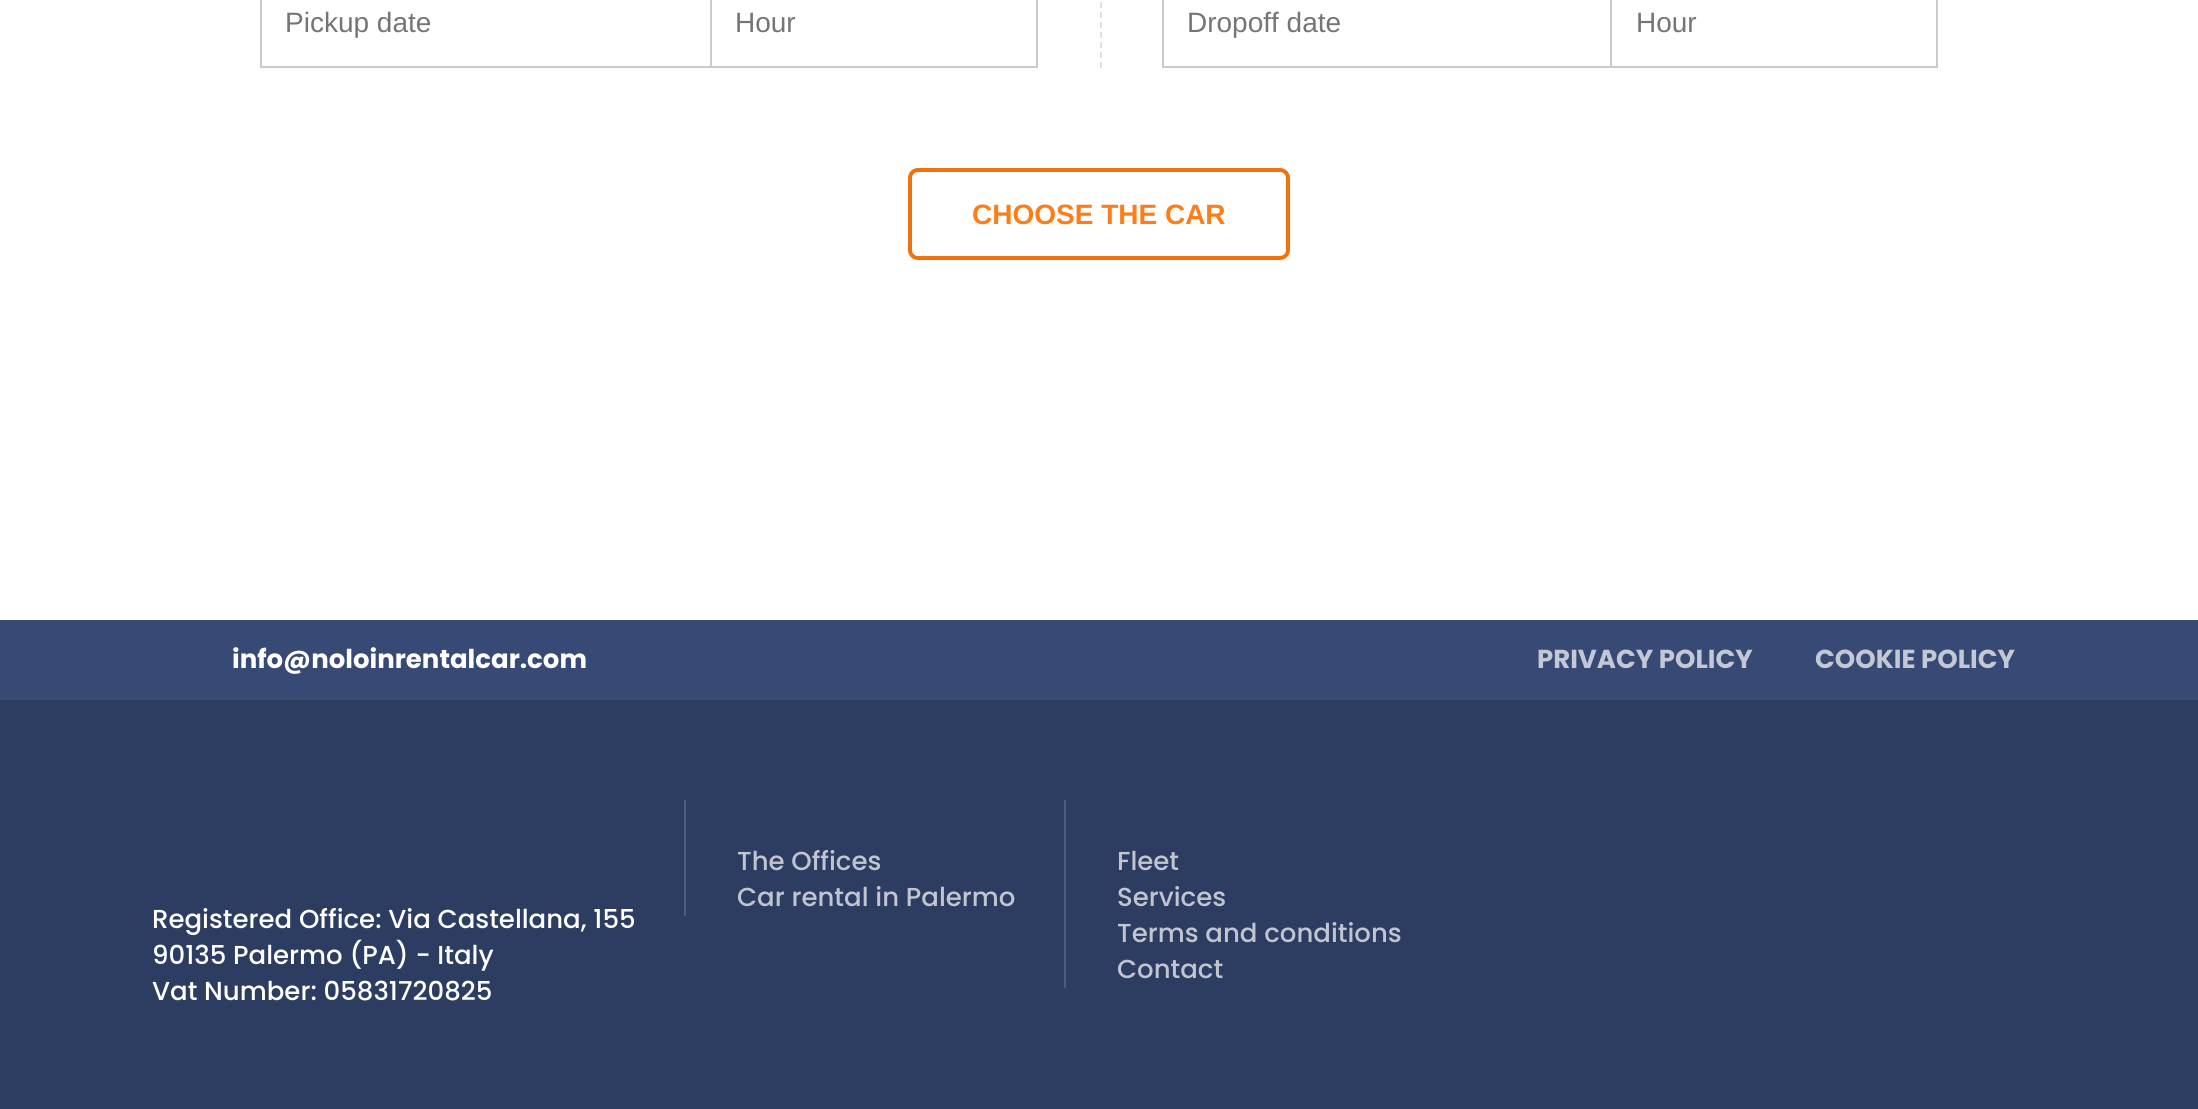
import math
import cairo

surface = cairo.ImageSurface(cairo.FORMAT_RGB24, 2198, 1109)
ctx = cairo.Context(surface)
options = cairo.FontOptions()
options.set_hint_metrics(cairo.HINT_METRICS_OFF)
options.set_hint_style(cairo.HINT_STYLE_NONE)
ctx.set_font_options(options)
ctx.set_miter_limit(4)


def set_color(code):
    ctx.set_source_rgb(*(v / 255 for v in bytes.fromhex(code[-6:])))


def draw_text(x, y, s, family, size, color, bold=False, italic=False):
    ctx.select_font_face(family, cairo.FONT_SLANT_ITALIC if italic else cairo.FONT_SLANT_NORMAL, cairo.FONT_WEIGHT_BOLD if bold else cairo.FONT_WEIGHT_NORMAL)
    ctx.set_font_size(size)
    set_color(color)
    ctx.move_to(x, y)
    ctx.show_text(s)


def fill_rect(x, y, w, h, color):
    set_color(color)
    ctx.rectangle(x, y, w, h)
    ctx.fill()


def rounded_rect(x, y, w, h, r):
    ctx.new_sub_path()
    for i, (u, v) in enumerate([(x + w - r, y + h - r), (x + r, y + h - r), (x + r, y + r), (x + w - r, y + r)]):
        ctx.arc(u, v, r, i * math.pi / 2, (i + 1) * math.pi / 2)
    ctx.close_path()


set_color("#ffffff")
ctx.paint()
ctx.rectangle(261, -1, 450, 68)
set_color("#cacaca")
ctx.stroke()
draw_text(285, 32, "Pickup date", "Liberation Sans", 28, "#757575")
fill_rect(1036, 0, 2, 68, "#cacaca")
fill_rect(712, 66, 326, 2, "#cacaca")
draw_text(735, 32, "Hour", "Liberation Sans", 28, "#757575")
ctx.new_path()
ctx.move_to(1101, -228)
ctx.line_to(1101, 68)
set_color("#dfdfdf")
ctx.set_dash([6, 4])
ctx.stroke()
ctx.rectangle(1163, -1, 448, 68)
set_color("#cacaca")
ctx.set_dash([])
ctx.stroke()
draw_text(1187, 32, "Dropoff date", "Liberation Sans", 28, "#757575")
fill_rect(1936, 0, 2, 68, "#cacaca")
fill_rect(1612, 66, 326, 2, "#cacaca")
draw_text(1636, 32, "Hour", "Liberation Sans", 28, "#757575")
rounded_rect(910, 170, 378, 88, 8)
set_color("#ef720c")
ctx.set_line_width(4)
ctx.stroke()
draw_text(972, 224, "CHOOSE THE CAR", "Liberation Sans", 28, "#ff7d19", bold=True)
fill_rect(0, 700, 2198, 409, "#2d3d62")
fill_rect(0, 620, 2198, 80, "#374975")
draw_text(232, 668, "info@noloinrentalcar.com", "Poppins", 26, "#ffffff", bold=True)
draw_text(1537, 668, "PRIVACY POLICY", "Poppins", 26, "#c3c8d6", bold=True)
draw_text(1815, 668, "COOKIE POLICY", "Poppins", 26, "#c3c8d6", bold=True)
draw_text(152, 928, "Registered Office: Via Castellana, 155", "Poppins Medium", 26, "#ffffff")
draw_text(152, 964, "90135 Palermo (PA) - Italy", "Poppins Medium", 26, "#ffffff")
draw_text(152, 1000, "Vat Number: 05831720825", "Poppins Medium", 26, "#ffffff")
fill_rect(684, 800, 2, 116, "#4d5a7a")
draw_text(737, 870, "The Offices", "Poppins Medium", 26, "#c0c5d0")
draw_text(737, 906, "Car rental in Palermo", "Poppins Medium", 26, "#c0c5d0")
fill_rect(1064, 800, 2, 188, "#4d5a7a")
draw_text(1117, 870, "Fleet", "Poppins Medium", 26, "#c0c5d0")
draw_text(1117, 906, "Services", "Poppins Medium", 26, "#c0c5d0")
draw_text(1117, 942, "Terms and conditions", "Poppins Medium", 26, "#c0c5d0")
draw_text(1117, 978, "Contact", "Poppins Medium", 26, "#c0c5d0")
surface.write_to_png("output.png")
